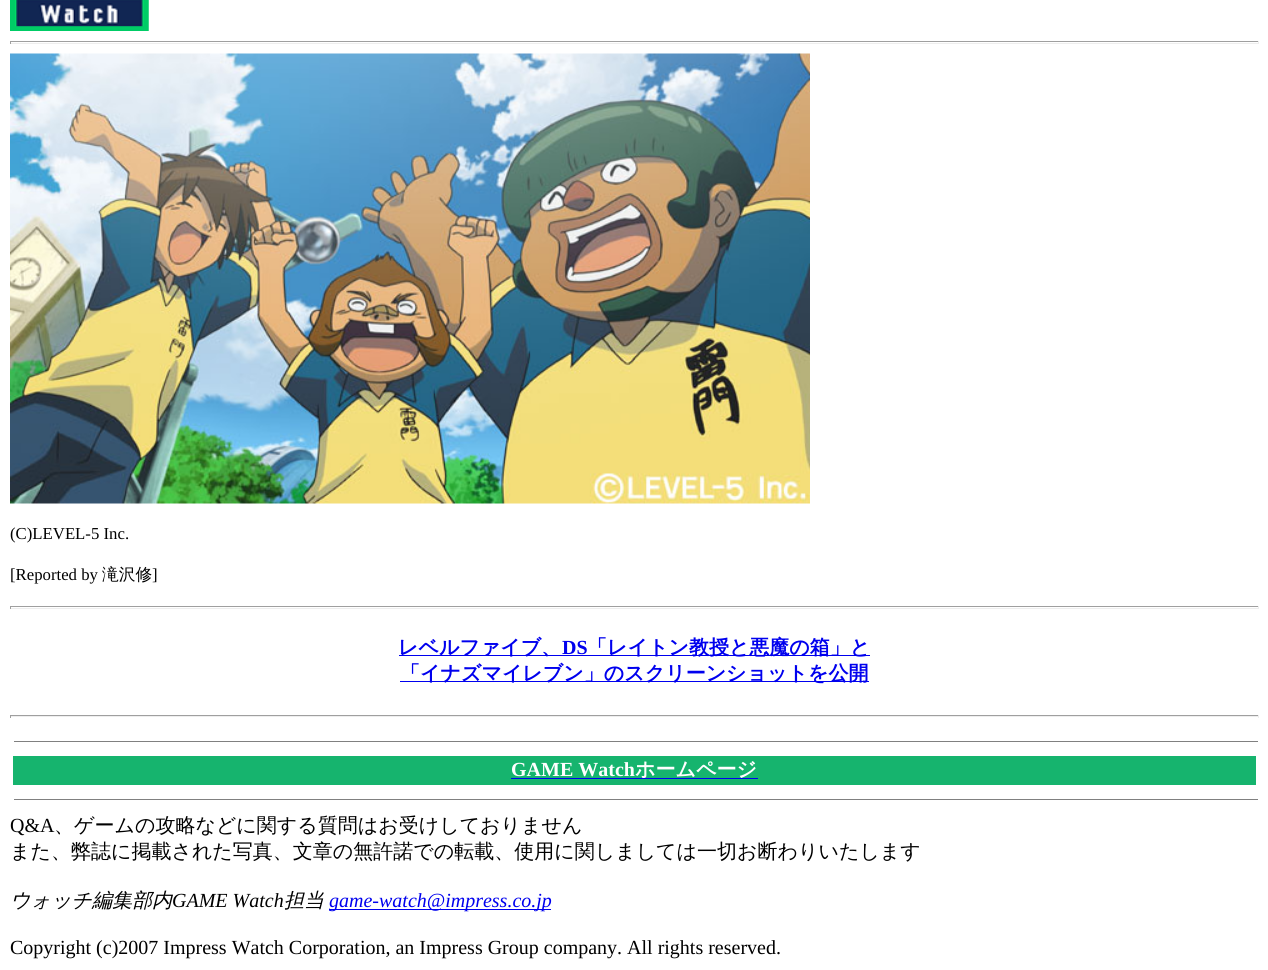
import math
import cairo

surface = cairo.ImageSurface(cairo.FORMAT_RGB24, 1268, 970)
ctx = cairo.Context(surface)
options = cairo.FontOptions()
options.set_hint_metrics(cairo.HINT_METRICS_OFF)
options.set_hint_style(cairo.HINT_STYLE_NONE)
ctx.set_font_options(options)
ctx.set_miter_limit(4)


def set_color(code):
    ctx.set_source_rgb(*(v / 255 for v in bytes.fromhex(code[-6:])))


def draw_text(x, y, s, family, size, color, bold=False, italic=False):
    ctx.select_font_face(family, cairo.FONT_SLANT_ITALIC if italic else cairo.FONT_SLANT_NORMAL, cairo.FONT_WEIGHT_BOLD if bold else cairo.FONT_WEIGHT_NORMAL)
    ctx.set_font_size(size)
    set_color(color)
    ctx.move_to(x, y)
    ctx.show_text(s)


def fill_rect(x, y, w, h, color):
    set_color(color)
    ctx.rectangle(x, y, w, h)
    ctx.fill()


def draw_image(path, x, y, w, h):
    ctx.save()
    ctx.set_source_surface(cairo.ImageSurface.create_from_png(path), x, y)
    ctx.rectangle(x, y, w, h)
    ctx.fill()
    ctx.restore()


set_color("#ffffff")
ctx.paint()
draw_image("assets/img1.png", 10, 0, 139, 31)
fill_rect(10, 41, 1249, 1, "#9f9f9f")
fill_rect(1258, 41, 1, 3, "#eeeeee")
fill_rect(10, 43, 1249, 1, "#eeeeee")
fill_rect(10, 41, 1, 3, "#9f9f9f")
draw_image("assets/img2.png", 10, 53, 800, 451)
draw_text(10, 539, "(C)LEVEL-5 Inc.", "Liberation Serif", 16.75, "#000000")
draw_text(10, 580, "[Reported by", "Liberation Serif", 16.75, "#000000")
draw_text(102, 580, "滝沢修", "WenQuanYi Zen Hei Medium", 16.75, "#000000")
draw_text(152, 580, "]", "Liberation Serif", 16.75, "#000000")
fill_rect(10, 606, 1249, 1, "#9f9f9f")
fill_rect(1258, 606, 1, 3, "#eeeeee")
fill_rect(10, 608, 1249, 1, "#eeeeee")
fill_rect(10, 606, 1, 3, "#9f9f9f")
fill_rect(399, 655, 471, 1, "#0000ee")
draw_text(398, 654, "レベルファイブ、", "WenQuanYi Zen Hei", 20, "#0000ee", bold=True)
draw_text(562, 654, "DS", "Liberation Serif", 20, "#0000ee", bold=True)
draw_text(587, 654, "「レイトン教授と悪魔の箱」と", "WenQuanYi Zen Hei", 20, "#0000ee", bold=True)
fill_rect(400, 681, 469, 1, "#0000ee")
draw_text(400, 680, "「イナズマイレブン」のスクリーンショットを公開", "WenQuanYi Zen Hei", 20, "#0000ee", bold=True)
fill_rect(10, 715, 1249, 1, "#9f9f9f")
fill_rect(1258, 715, 1, 3, "#eeeeee")
fill_rect(10, 716, 1249, 1, "#eeeeee")
fill_rect(10, 715, 1, 3, "#9f9f9f")
fill_rect(14, 741, 1244, 1, "#808080")
fill_rect(13, 756, 1243, 29, "#16b46e")
draw_text(511, 776, "GAME Watch", "Liberation Serif", 20, "#ffffff", bold=True)
fill_rect(511, 778, 247, 1, "#0000ee")
draw_text(635, 776, "ホームページ", "WenQuanYi Zen Hei", 20, "#ffffff", bold=True)
fill_rect(14, 799, 1244, 1, "#808080")
draw_text(10, 832, "Q&A", "Liberation Serif", 20, "#000000")
draw_text(54, 832, "、ゲームの攻略などに関する質問はお受けしておりません", "WenQuanYi Zen Hei Medium", 20, "#000000")
draw_text(10, 858, "また、弊誌に掲載された写真、文章の無許諾での転載、使用に関しましては一切お断わりいたします", "WenQuanYi Zen Hei Medium", 20, "#000000")
draw_text(10, 907, "ウォッチ編集部内", "WenQuanYi Zen Hei Medium", 20, "#000000", italic=True)
draw_text(172, 907, "GAME Watch", "Liberation Serif", 20, "#000000", italic=True)
draw_text(284, 907, "担当", "WenQuanYi Zen Hei Medium", 20, "#000000", italic=True)
fill_rect(329, 909, 222, 1, "#0000ee")
draw_text(329, 907, "game-watch@impress.co.jp", "Liberation Serif", 20, "#0000ee", italic=True)
draw_text(10, 954, "Copyright (c)2007 Impress Watch Corporation, an Impress Group company. All rights reserved.", "Liberation Serif", 20, "#000000")
surface.write_to_png("output.png")
